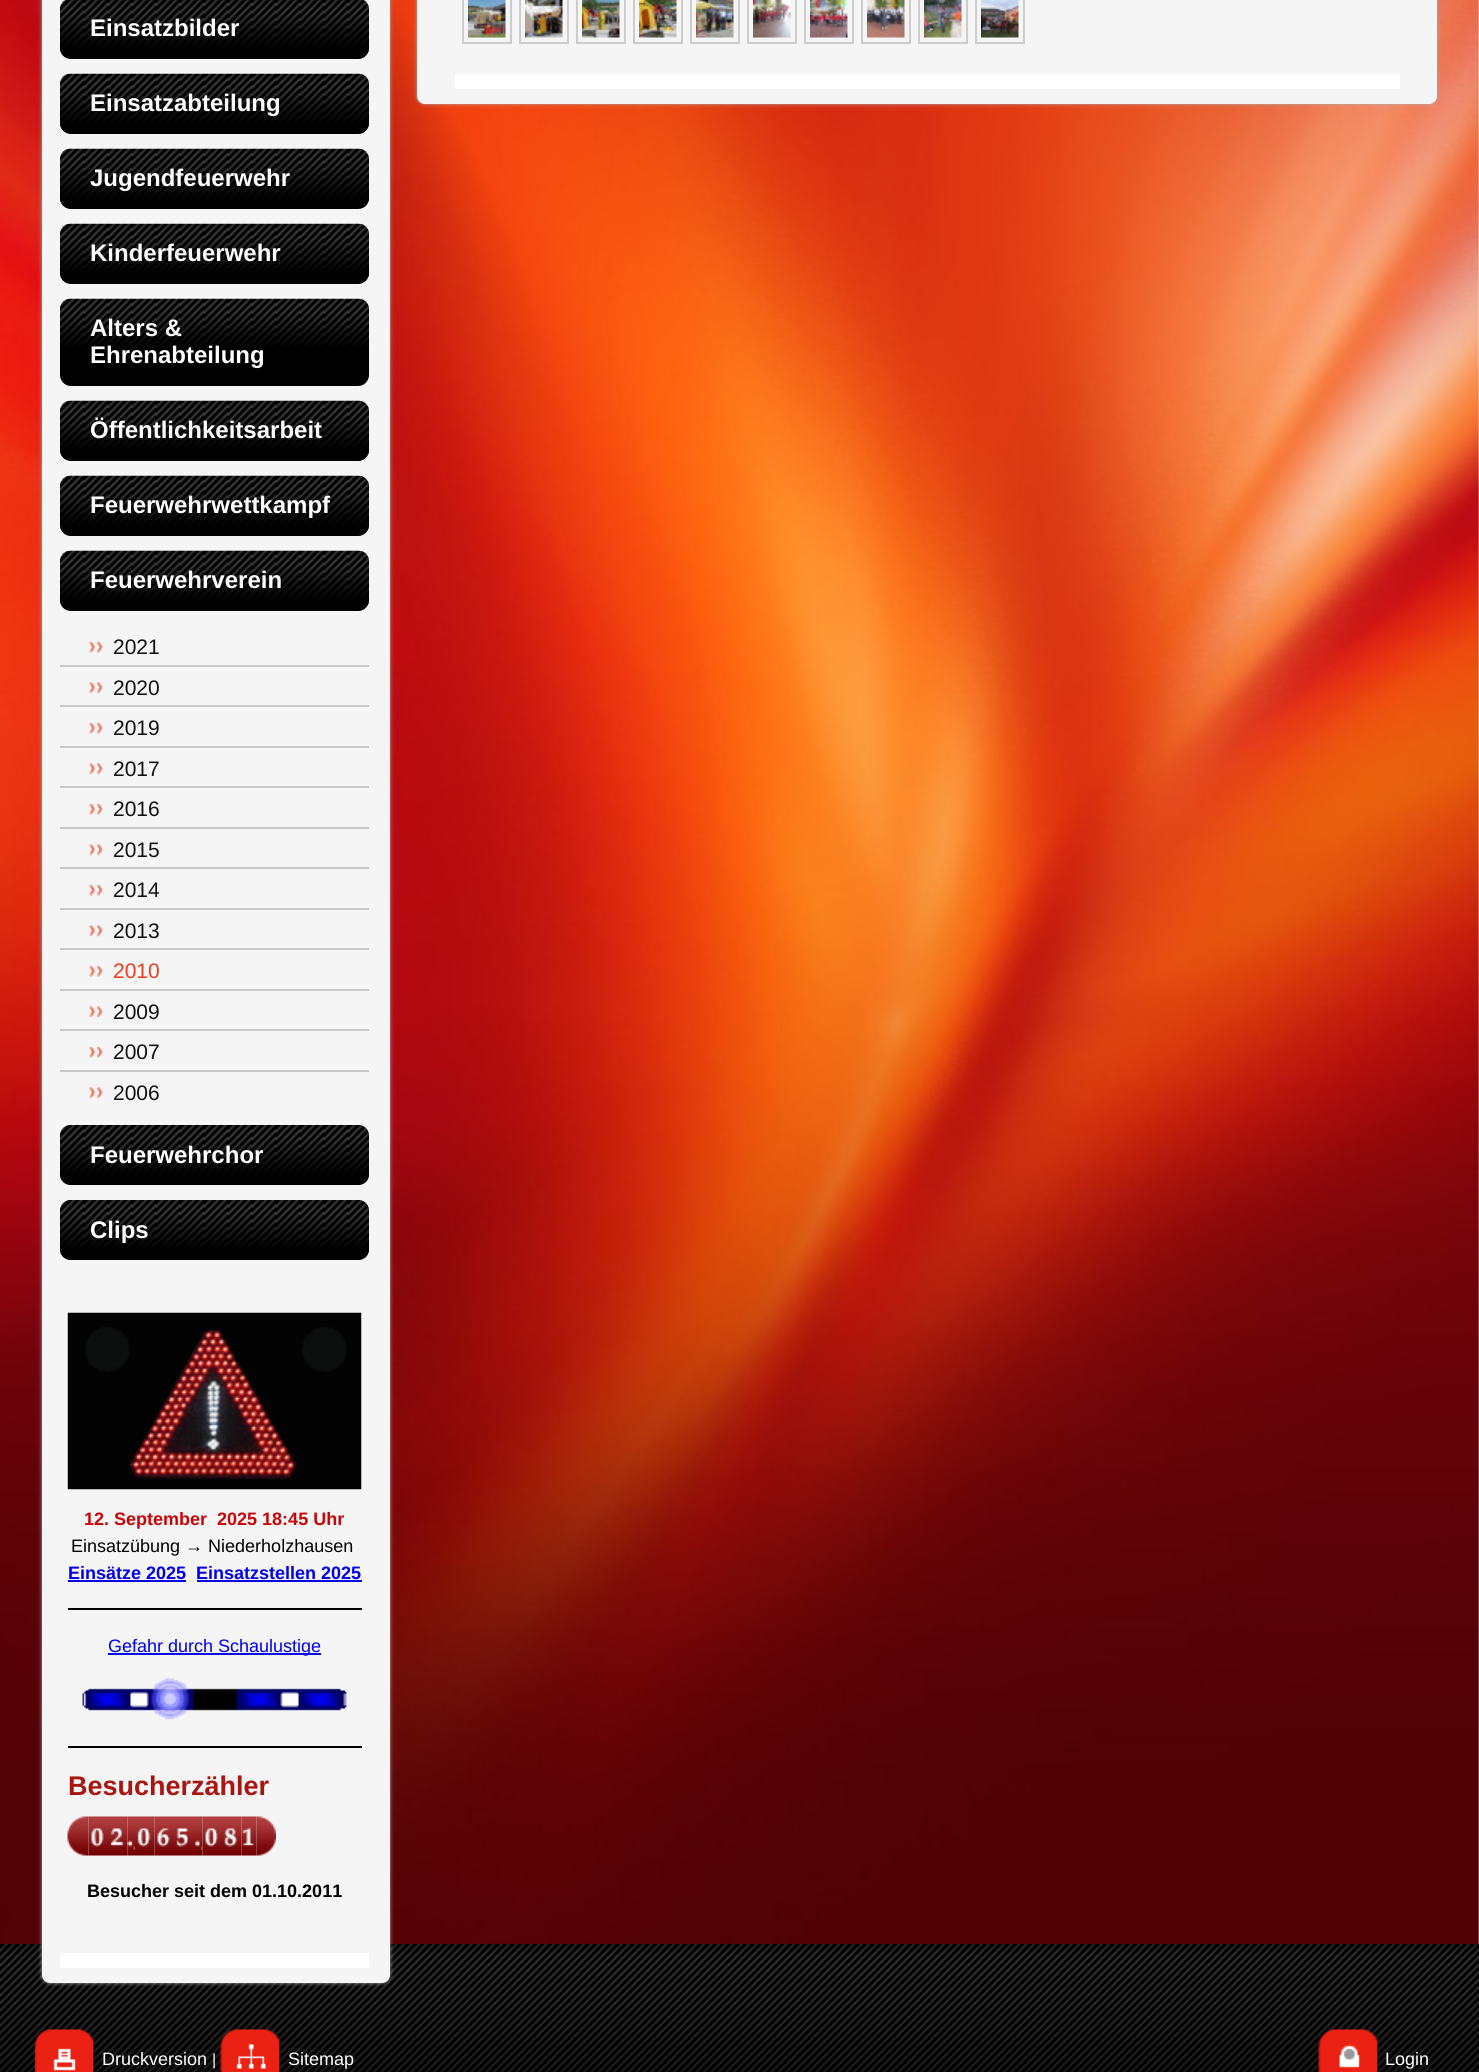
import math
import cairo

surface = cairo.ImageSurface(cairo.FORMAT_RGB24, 1479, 2072)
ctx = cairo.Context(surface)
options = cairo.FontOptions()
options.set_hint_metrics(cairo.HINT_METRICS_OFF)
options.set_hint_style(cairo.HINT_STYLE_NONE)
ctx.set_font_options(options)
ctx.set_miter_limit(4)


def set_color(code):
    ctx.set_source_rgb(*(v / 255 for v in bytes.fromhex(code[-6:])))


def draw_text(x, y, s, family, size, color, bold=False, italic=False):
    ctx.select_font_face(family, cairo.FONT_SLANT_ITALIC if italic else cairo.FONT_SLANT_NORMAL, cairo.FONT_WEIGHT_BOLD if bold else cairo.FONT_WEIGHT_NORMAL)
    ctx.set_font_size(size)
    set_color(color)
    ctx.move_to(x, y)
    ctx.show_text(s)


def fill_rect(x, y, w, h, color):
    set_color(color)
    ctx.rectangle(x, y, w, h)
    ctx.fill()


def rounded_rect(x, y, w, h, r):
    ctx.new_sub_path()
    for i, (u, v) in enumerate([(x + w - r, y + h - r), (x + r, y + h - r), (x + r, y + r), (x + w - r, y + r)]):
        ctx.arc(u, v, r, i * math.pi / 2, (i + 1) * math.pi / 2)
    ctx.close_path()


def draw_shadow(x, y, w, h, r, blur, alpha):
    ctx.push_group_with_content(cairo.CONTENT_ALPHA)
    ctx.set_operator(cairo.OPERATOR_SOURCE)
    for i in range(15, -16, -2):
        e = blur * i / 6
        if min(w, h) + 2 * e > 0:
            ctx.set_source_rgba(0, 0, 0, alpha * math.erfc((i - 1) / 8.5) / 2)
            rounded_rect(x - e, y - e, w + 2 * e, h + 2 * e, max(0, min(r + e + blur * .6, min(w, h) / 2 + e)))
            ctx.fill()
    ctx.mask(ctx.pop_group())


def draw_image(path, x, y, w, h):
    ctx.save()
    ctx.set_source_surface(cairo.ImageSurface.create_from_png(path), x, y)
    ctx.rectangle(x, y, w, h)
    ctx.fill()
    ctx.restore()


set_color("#ffffff")
ctx.paint()
draw_image("assets/img1.png", 0, 0, 1479, 1944)
draw_image("assets/img38.png", 0, 1944, 1479, 128)
set_color("#aaaaaa")
draw_shadow(42, -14, 348, 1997, 8, 2, 1)
set_color("#f5f5f5")
rounded_rect(42, -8, 348, 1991, 8)
ctx.fill()
fill_rect(60, 1953, 309, 15, "#ffffff")
set_color("#000000")
rounded_rect(60, -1, 309, 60, 11)
ctx.fill()
draw_image("assets/img2.png", 60, 0, 309, 59)
draw_text(90, 36, "Einsatzbilder", "Liberation Sans", 24, "#ffffff", bold=True)
set_color("#000000")
rounded_rect(60, 74, 309, 60, 11)
ctx.fill()
draw_image("assets/img3.png", 60, 73, 309, 61)
draw_text(90, 111, "Einsatzabteilung", "Liberation Sans", 24, "#ffffff", bold=True)
set_color("#000000")
rounded_rect(60, 149, 309, 60, 11)
ctx.fill()
draw_image("assets/img4.png", 60, 148, 309, 61)
draw_text(90, 186, "Jugendfeuerwehr", "Liberation Sans", 24, "#ffffff", bold=True)
set_color("#000000")
rounded_rect(60, 224, 309, 60, 11)
ctx.fill()
draw_image("assets/img5.png", 60, 223, 309, 61)
draw_text(90, 261, "Kinderfeuerwehr", "Liberation Sans", 24, "#ffffff", bold=True)
set_color("#000000")
rounded_rect(60, 299, 309, 87, 11)
ctx.fill()
draw_image("assets/img6.png", 60, 298, 309, 48)
draw_text(90, 336, "Alters &", "Liberation Sans", 24, "#ffffff", bold=True)
draw_text(90, 363, "Ehrenabteilung", "Liberation Sans", 24, "#ffffff", bold=True)
set_color("#000000")
rounded_rect(60, 401, 309, 60, 11)
ctx.fill()
draw_image("assets/img7.png", 60, 400, 309, 61)
draw_text(90, 438, "Öffentlichkeitsarbeit", "Liberation Sans", 24, "#ffffff", bold=True)
set_color("#000000")
rounded_rect(60, 476, 309, 60, 11)
ctx.fill()
draw_image("assets/img8.png", 60, 475, 309, 61)
draw_text(90, 513, "Feuerwehrwettkampf", "Liberation Sans", 24, "#ffffff", bold=True)
set_color("#000000")
rounded_rect(60, 551, 309, 60, 11)
ctx.fill()
draw_image("assets/img9.png", 60, 550, 309, 61)
draw_text(90, 588, "Feuerwehrverein", "Liberation Sans", 24, "#ffffff", bold=True)
fill_rect(60, 665, 309, 2, "#c7c7c7")
draw_image("assets/img10.png", 88, 641, 15, 12)
draw_text(113, 654, "2021", "Liberation Sans", 21, "#121212")
fill_rect(60, 705, 309, 2, "#c7c7c7")
draw_image("assets/img11.png", 88, 682, 15, 12)
draw_text(113, 695, "2020", "Liberation Sans", 21, "#121212")
fill_rect(60, 746, 309, 2, "#c7c7c7")
draw_image("assets/img10.png", 88, 722, 15, 12)
draw_text(113, 735, "2019", "Liberation Sans", 21, "#121212")
fill_rect(60, 786, 309, 2, "#c7c7c7")
draw_image("assets/img11.png", 88, 763, 15, 12)
draw_text(113, 776, "2017", "Liberation Sans", 21, "#121212")
fill_rect(60, 827, 309, 2, "#c7c7c7")
draw_image("assets/img10.png", 88, 803, 15, 12)
draw_text(113, 816, "2016", "Liberation Sans", 21, "#121212")
fill_rect(60, 867, 309, 2, "#c7c7c7")
draw_image("assets/img11.png", 88, 844, 15, 12)
draw_text(113, 857, "2015", "Liberation Sans", 21, "#121212")
fill_rect(60, 908, 309, 2, "#c7c7c7")
draw_image("assets/img10.png", 88, 884, 15, 12)
draw_text(113, 897, "2014", "Liberation Sans", 21, "#121212")
fill_rect(60, 948, 309, 2, "#c7c7c7")
draw_image("assets/img11.png", 88, 925, 15, 12)
draw_text(113, 938, "2013", "Liberation Sans", 21, "#121212")
fill_rect(60, 989, 309, 2, "#c7c7c7")
draw_image("assets/img10.png", 88, 965, 15, 12)
draw_text(113, 978, "2010", "Liberation Sans", 21, "#ed3d1a")
fill_rect(60, 1029, 309, 2, "#c7c7c7")
draw_image("assets/img11.png", 88, 1006, 15, 12)
draw_text(113, 1019, "2009", "Liberation Sans", 21, "#121212")
fill_rect(60, 1070, 309, 2, "#c7c7c7")
draw_image("assets/img10.png", 88, 1046, 15, 12)
draw_text(113, 1059, "2007", "Liberation Sans", 21, "#121212")
draw_image("assets/img11.png", 88, 1087, 15, 12)
draw_text(113, 1100, "2006", "Liberation Sans", 21, "#121212")
set_color("#000000")
rounded_rect(60, 1125, 309, 60, 11)
ctx.fill()
draw_image("assets/img12.png", 60, 1125, 309, 60)
draw_text(90, 1163, "Feuerwehrchor", "Liberation Sans", 24, "#ffffff", bold=True)
set_color("#000000")
rounded_rect(60, 1200, 309, 60, 11)
ctx.fill()
draw_image("assets/img13.png", 60, 1200, 309, 60)
draw_text(90, 1238, "Clips", "Liberation Sans", 24, "#ffffff", bold=True)
draw_image("assets/img14.png", 67, 1312, 295, 178)
draw_text(84, 1525, "12. September  2025 18:45 Uhr", "Liberation Sans", 18, "#c90509", bold=True)
draw_text(71, 1552, "Einsatzübung → Niederholzhausen", "Liberation Sans", 18, "#000000")
draw_text(68, 1579, "Einsätze 2025", "Liberation Sans", 18, "#0000ee", bold=True)
fill_rect(68, 1580, 118, 2, "#0000ee")
draw_text(196, 1579, "Einsatzstellen 2025", "Liberation Sans", 18, "#0000ee", bold=True)
fill_rect(197, 1580, 165, 2, "#0000ee")
fill_rect(68, 1608, 294, 2, "#000000")
fill_rect(108, 1653, 213, 2, "#0000ee")
draw_text(108, 1652, "Gefahr durch Schaulustige", "Liberation Sans", 18, "#0000ee")
draw_image("assets/img15.png", 82, 1678, 265, 42)
fill_rect(68, 1746, 294, 2, "#000000")
draw_text(68, 1795, "Besucherzähler", "Liberation Sans", 27, "#aa1511", bold=True)
draw_image("assets/img16.png", 67, 1816, 22, 40)
draw_image("assets/img17.png", 88, 1816, 20, 40)
draw_image("assets/img18.png", 108, 1816, 20, 40)
draw_image("assets/img19.png", 127, 1816, 8, 40)
draw_image("assets/img20.png", 135, 1816, 20, 40)
draw_image("assets/img21.png", 154, 1816, 20, 40)
draw_image("assets/img22.png", 174, 1816, 21, 40)
draw_image("assets/img23.png", 195, 1816, 8, 40)
draw_image("assets/img24.png", 202, 1816, 20, 40)
draw_image("assets/img25.png", 222, 1816, 20, 40)
draw_image("assets/img26.png", 241, 1816, 16, 40)
draw_image("assets/img27.png", 256, 1816, 20, 40)
draw_text(87, 1897, "Besucher seit dem 01.10.2011", "Liberation Sans", 18, "#000000", bold=True)
set_color("#aaaaaa")
draw_shadow(417, -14, 1020, 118, 8, 2, 1)
set_color("#f5f5f5")
rounded_rect(417, -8, 1020, 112, 8)
ctx.fill()
fill_rect(455, 74, 945, 15, "#ffffff")
ctx.rectangle(463, -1, 48, 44)
set_color("#cccccc")
ctx.stroke()
draw_image("assets/img28.png", 468, 0, 38, 38)
ctx.rectangle(520, -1, 48, 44)
ctx.stroke()
draw_image("assets/img29.png", 525, 0, 38, 38)
ctx.rectangle(577, -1, 48, 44)
ctx.stroke()
draw_image("assets/img30.png", 582, 0, 38, 38)
ctx.rectangle(634, -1, 48, 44)
ctx.stroke()
draw_image("assets/img31.png", 639, 0, 38, 38)
ctx.rectangle(691, -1, 48, 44)
ctx.stroke()
draw_image("assets/img32.png", 696, 0, 38, 38)
ctx.rectangle(748, -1, 48, 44)
ctx.stroke()
draw_image("assets/img33.png", 753, 0, 38, 38)
ctx.rectangle(805, -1, 48, 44)
ctx.stroke()
draw_image("assets/img34.png", 810, 0, 38, 38)
ctx.rectangle(862, -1, 48, 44)
ctx.stroke()
draw_image("assets/img35.png", 867, 0, 38, 38)
ctx.rectangle(919, -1, 48, 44)
ctx.stroke()
draw_image("assets/img36.png", 924, 0, 38, 38)
ctx.rectangle(976, -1, 48, 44)
ctx.stroke()
draw_image("assets/img37.png", 981, 0, 38, 38)
draw_image("assets/img39.png", 34, 2029, 59, 43)
draw_text(102, 2065, "Druckversion", "Liberation Sans", 18, "#ffffff")
draw_text(212, 2065, "|", "Liberation Sans", 16, "#ffffff")
draw_image("assets/img40.png", 220, 2029, 59, 43)
draw_text(288, 2065, "Sitemap", "Liberation Sans", 18, "#ffffff")
draw_image("assets/img41.png", 1318, 2029, 59, 43)
draw_text(1385, 2065, "Login", "Liberation Sans", 18, "#ffffff")
surface.write_to_png("output.png")
